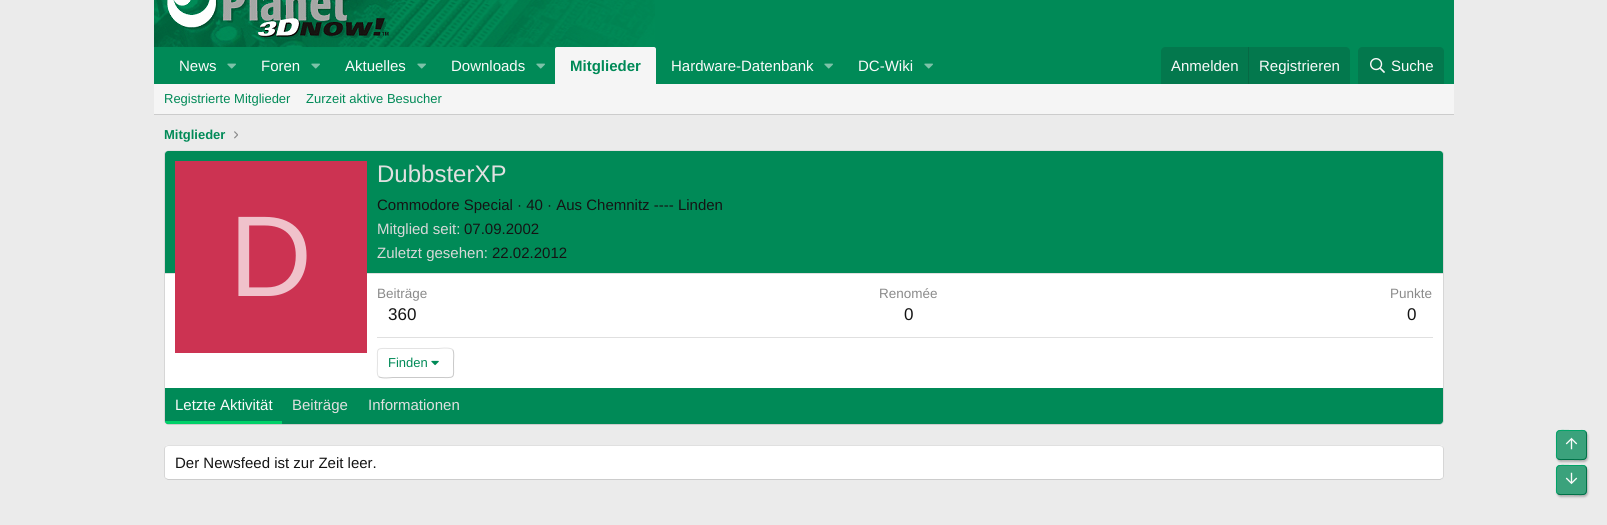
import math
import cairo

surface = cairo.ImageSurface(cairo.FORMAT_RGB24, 1607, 525)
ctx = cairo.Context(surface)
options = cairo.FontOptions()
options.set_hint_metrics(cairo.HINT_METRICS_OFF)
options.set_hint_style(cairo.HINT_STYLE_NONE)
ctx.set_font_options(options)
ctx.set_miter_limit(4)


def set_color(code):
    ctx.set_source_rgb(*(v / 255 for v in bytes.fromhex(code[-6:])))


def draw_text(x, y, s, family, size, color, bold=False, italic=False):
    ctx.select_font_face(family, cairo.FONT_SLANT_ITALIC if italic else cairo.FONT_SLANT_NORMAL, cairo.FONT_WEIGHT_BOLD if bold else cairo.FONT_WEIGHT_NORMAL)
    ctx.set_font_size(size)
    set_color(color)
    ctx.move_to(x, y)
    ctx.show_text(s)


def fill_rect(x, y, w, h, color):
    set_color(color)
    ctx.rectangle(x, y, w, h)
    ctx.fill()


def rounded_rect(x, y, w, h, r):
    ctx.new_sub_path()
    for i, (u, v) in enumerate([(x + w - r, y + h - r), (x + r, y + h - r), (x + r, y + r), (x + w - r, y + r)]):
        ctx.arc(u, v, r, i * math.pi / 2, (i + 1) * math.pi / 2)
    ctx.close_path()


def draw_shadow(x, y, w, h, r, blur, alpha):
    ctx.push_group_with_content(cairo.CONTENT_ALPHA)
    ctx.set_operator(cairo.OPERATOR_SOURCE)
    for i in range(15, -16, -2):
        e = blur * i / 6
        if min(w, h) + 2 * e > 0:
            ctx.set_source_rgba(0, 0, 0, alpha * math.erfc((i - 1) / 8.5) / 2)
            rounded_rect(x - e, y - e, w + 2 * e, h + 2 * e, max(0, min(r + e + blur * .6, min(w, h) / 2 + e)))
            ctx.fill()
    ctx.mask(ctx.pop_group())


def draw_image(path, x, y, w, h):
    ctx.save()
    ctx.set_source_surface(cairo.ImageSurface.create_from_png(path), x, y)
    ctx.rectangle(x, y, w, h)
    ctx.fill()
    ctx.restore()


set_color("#ebebeb")
ctx.paint()
fill_rect(154, 0, 1300, 84, "#008a57")
draw_image("assets/img1.png", 154, 0, 501, 47)
draw_image("assets/img2.png", 167, 0, 222, 39)
draw_text(179, 71, "News", "Liberation Sans", 15, "#fafafa")
draw_image("assets/img3.png", 227, 63, 9, 6)
draw_text(261, 71, "Foren", "Liberation Sans", 15, "#fafafa")
draw_image("assets/img3.png", 311, 63, 9, 6)
draw_text(345, 71, "Aktuelles", "Liberation Sans", 15, "#fafafa")
draw_image("assets/img3.png", 417, 63, 9, 6)
draw_text(451, 71, "Downloads", "Liberation Sans", 15, "#fafafa")
draw_image("assets/img3.png", 536, 63, 9, 6)
set_color("#f5f5f5")
ctx.new_path()
ctx.move_to(557, 47)
ctx.line_to(654, 47)
ctx.curve_to(655, 47, 656, 48, 656, 49)
ctx.line_to(656, 84)
ctx.line_to(555, 84)
ctx.line_to(555, 49)
ctx.curve_to(555, 48, 556, 47, 557, 47)
ctx.close_path()
ctx.fill()
draw_text(570, 71, "Mitglieder", "Liberation Sans", 15, "#008a57", bold=True)
draw_text(671, 71, "Hardware-Datenbank", "Liberation Sans", 15, "#fafafa")
draw_image("assets/img3.png", 824, 63, 9, 6)
draw_text(858, 71, "DC-Wiki", "Liberation Sans", 15, "#fafafa")
draw_image("assets/img3.png", 924, 63, 9, 6)
set_color("#03784d")
ctx.new_path()
ctx.move_to(1165, 47)
ctx.line_to(1346, 47)
ctx.curve_to(1348, 47, 1350, 49, 1350, 51)
ctx.line_to(1350, 84)
ctx.line_to(1161, 84)
ctx.line_to(1161, 51)
ctx.curve_to(1161, 49, 1163, 47, 1165, 47)
ctx.close_path()
ctx.fill()
draw_text(1171, 71, "Anmelden", "Liberation Sans", 15, "#fafafa")
fill_rect(1248, 47, 1, 37, "#066944")
draw_text(1259, 71, "Registrieren", "Liberation Sans", 15, "#fafafa")
set_color("#03784d")
ctx.new_path()
ctx.move_to(1362, 47)
ctx.line_to(1440, 47)
ctx.curve_to(1442, 47, 1444, 49, 1444, 51)
ctx.line_to(1444, 84)
ctx.line_to(1358, 84)
ctx.line_to(1358, 51)
ctx.curve_to(1358, 49, 1360, 47, 1362, 47)
ctx.close_path()
ctx.fill()
draw_image("assets/img4.png", 1370, 58, 15, 15)
draw_text(1391, 71, "Suche", "Liberation Sans", 15, "#fafafa")
fill_rect(154, 84, 1300, 30, "#f5f5f5")
fill_rect(154, 114, 1300, 1, "#cccccc")
draw_text(164, 103, "Registrierte Mitglieder", "Liberation Sans", 13, "#008a57")
draw_text(306, 103, "Zurzeit aktive Besucher", "Liberation Sans", 13, "#008a57")
draw_text(164, 139, "Mitglieder", "Liberation Sans", 13, "#008a57", bold=True)
draw_image("assets/img5.png", 234, 131, 4, 8)
set_color("#ffffff")
rounded_rect(164, 150, 1280, 275, 4)
ctx.fill()
ctx.new_path()
ctx.move_to(165.5, 151.5)
ctx.line_to(168, 150.5)
ctx.line_to(1440, 150.5)
ctx.line_to(1442.5, 151.5)
set_color("#e0e0e0")
ctx.set_line_width(1)
ctx.stroke()
ctx.new_path()
ctx.move_to(1442.5, 151.5)
ctx.curve_to(1443, 152, 1443.5, 153, 1443.5, 154)
ctx.line_to(1443.5, 421)
ctx.curve_to(1443.5, 422, 1443, 423, 1442.5, 423.5)
set_color("#d6d6d6")
ctx.stroke()
ctx.new_path()
ctx.move_to(1442.5, 423.5)
ctx.line_to(1440, 424.5)
ctx.line_to(168, 424.5)
ctx.line_to(165.5, 423.5)
set_color("#cccccc")
ctx.stroke()
ctx.new_path()
ctx.move_to(165.5, 423.5)
ctx.curve_to(165, 423, 164.5, 422, 164.5, 421)
ctx.line_to(164.5, 154)
ctx.curve_to(164.5, 153, 165, 152, 165.5, 151.5)
set_color("#d6d6d6")
ctx.stroke()
set_color("#008a57")
ctx.new_path()
ctx.move_to(168, 151)
ctx.line_to(1440, 151)
ctx.curve_to(1441.5, 151, 1443, 152.5, 1443, 154)
ctx.line_to(1443, 274)
ctx.line_to(165, 274)
ctx.line_to(165, 154)
ctx.curve_to(165, 152.5, 166.5, 151, 168, 151)
ctx.close_path()
ctx.fill()
fill_rect(165, 273, 1278, 1, "#e0e0e0")
fill_rect(175, 161, 192, 192, "#cc3352")
draw_text(229, 296, "D", "Liberation Sans", 115, "#f0c2cb")
draw_text(377, 182, "DubbsterXP", "Liberation Sans", 24, "#e0e0e0")
draw_text(377, 210, "Commodore Special · 40 · Aus Chemnitz ---- Linden", "Liberation Sans", 15, "#141414")
draw_text(377, 234, "Mitglied seit:", "Liberation Sans", 15, "#d8d8d8")
draw_text(464, 234, "07.09.2002", "Liberation Sans", 15, "#141414")
draw_text(377, 258, "Zuletzt gesehen:", "Liberation Sans", 15, "#d8d8d8")
draw_text(492, 258, "22.02.2012", "Liberation Sans", 15, "#141414")
draw_text(377, 298, "Beiträge", "Liberation Sans", 13.5, "#8a8a8a")
draw_text(388, 320, "360", "Liberation Sans", 17, "#141414")
draw_text(879, 298, "Renomée", "Liberation Sans", 13.5, "#8a8a8a")
draw_text(904, 320, "0", "Liberation Sans", 17, "#141414")
draw_text(1390, 298, "Punkte", "Liberation Sans", 13.5, "#8a8a8a")
draw_text(1407, 320, "0", "Liberation Sans", 17, "#141414")
fill_rect(377, 337, 1056, 1, "#e0e0e0")
ctx.new_path()
ctx.move_to(452.5, 349.5)
ctx.curve_to(454.5, 351.5, 453.5, 360, 453.5, 363)
ctx.curve_to(453.5, 379.5, 456, 377.5, 438.5, 377.5)
ctx.line_to(392.5, 377.5)
ctx.curve_to(392, 377.5, 381.5, 379, 378.5, 376.5)
set_color("#c9c9c9")
ctx.stroke()
ctx.new_path()
ctx.move_to(378.5, 376.5)
ctx.curve_to(376.5, 374.5, 377.5, 366, 377.5, 363)
ctx.curve_to(377.5, 346.5, 375, 348.5, 392.5, 348.5)
ctx.line_to(438.5, 348.5)
ctx.curve_to(439, 348.5, 449.5, 347, 452.5, 349.5)
set_color("#e3e3e3")
ctx.stroke()
draw_text(388, 367, "Finden", "Liberation Sans", 13, "#008a57")
draw_image("assets/img6.png", 431, 360, 8, 6)
ctx.new_path()
ctx.move_to(165, 388)
ctx.line_to(1443, 388)
ctx.line_to(1443, 421)
ctx.curve_to(1443, 422.5, 1441.5, 424, 1440, 424)
ctx.line_to(168, 424)
ctx.curve_to(166.5, 424, 165, 422.5, 165, 421)
ctx.close_path()
ctx.fill()
set_color("#00d169")
ctx.new_path()
ctx.move_to(165, 421)
ctx.line_to(282, 421)
ctx.line_to(282, 424)
ctx.line_to(168, 424)
ctx.curve_to(166.5, 424, 165, 422.5, 165, 421)
ctx.close_path()
ctx.fill()
draw_text(175, 410, "Letzte Aktivität", "Liberation Sans", 15, "#fafafa")
draw_text(292, 410, "Beiträge", "Liberation Sans", 15, "#e0e0e0")
draw_text(368, 410, "Informationen", "Liberation Sans", 15, "#e0e0e0")
set_color("#ffffff")
rounded_rect(164, 445, 1280, 35, 4)
ctx.fill()
ctx.new_path()
ctx.move_to(165.5, 446.5)
ctx.line_to(168, 445.5)
ctx.line_to(1440, 445.5)
ctx.line_to(1442.5, 446.5)
set_color("#e0e0e0")
ctx.stroke()
ctx.new_path()
ctx.move_to(1442.5, 446.5)
ctx.curve_to(1443, 447, 1443.5, 448, 1443.5, 449)
ctx.line_to(1443.5, 476)
ctx.curve_to(1443.5, 477, 1443, 478, 1442.5, 478.5)
set_color("#d6d6d6")
ctx.stroke()
ctx.new_path()
ctx.move_to(1442.5, 478.5)
ctx.line_to(1440, 479.5)
ctx.line_to(168, 479.5)
ctx.line_to(165.5, 478.5)
set_color("#cccccc")
ctx.stroke()
ctx.new_path()
ctx.move_to(165.5, 478.5)
ctx.curve_to(165, 478, 164.5, 477, 164.5, 476)
ctx.line_to(164.5, 449)
ctx.curve_to(164.5, 448, 165, 447, 165.5, 446.5)
set_color("#d6d6d6")
ctx.stroke()
draw_text(175, 468, "Der Newsfeed ist zur Zeit leer.", "Liberation Sans", 15, "#141414")
ctx.save()
ctx.set_fill_rule(cairo.FILL_RULE_EVEN_ODD)
ctx.new_path()
ctx.move_to(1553, 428)
ctx.line_to(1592, 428)
ctx.line_to(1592, 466)
ctx.line_to(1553, 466)
ctx.close_path()
ctx.move_to(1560, 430)
ctx.line_to(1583, 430)
ctx.curve_to(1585, 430, 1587, 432, 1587, 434)
ctx.line_to(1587, 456)
ctx.curve_to(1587, 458, 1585, 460, 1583, 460)
ctx.line_to(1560, 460)
ctx.curve_to(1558, 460, 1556, 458, 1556, 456)
ctx.line_to(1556, 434)
ctx.curve_to(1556, 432, 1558, 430, 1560, 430)
ctx.close_path()
ctx.clip()
set_color("#000000")
draw_shadow(1557, 432, 31, 30, 4, 1, 0.25)
ctx.restore()
ctx.set_source_rgba(0, 0.541, 0.341, 0.75)
rounded_rect(1556, 430, 31, 30, 4)
ctx.fill()
ctx.new_path()
ctx.move_to(1585.5, 431.5)
ctx.curve_to(1587, 433, 1586.5, 436, 1586.5, 437.5)
ctx.line_to(1586.5, 445)
ctx.curve_to(1586.5, 462, 1588.5, 459.5, 1571.5, 459.5)
ctx.line_to(1564, 459.5)
ctx.curve_to(1562, 459.5, 1559, 460, 1557.5, 458.5)
set_color("#007047")
ctx.stroke()
ctx.new_path()
ctx.move_to(1557.5, 458.5)
ctx.curve_to(1556, 457, 1556.5, 454, 1556.5, 452.5)
ctx.line_to(1556.5, 445)
ctx.curve_to(1556.5, 428, 1554.5, 430.5, 1571.5, 430.5)
ctx.line_to(1579, 430.5)
ctx.curve_to(1581, 430.5, 1584, 430, 1585.5, 431.5)
set_color("#00a367")
ctx.stroke()
draw_image("assets/img7.png", 1565, 437, 13, 13)
ctx.save()
ctx.set_fill_rule(cairo.FILL_RULE_EVEN_ODD)
ctx.new_path()
ctx.move_to(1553, 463)
ctx.line_to(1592, 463)
ctx.line_to(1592, 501)
ctx.line_to(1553, 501)
ctx.close_path()
ctx.move_to(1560, 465)
ctx.line_to(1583, 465)
ctx.curve_to(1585, 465, 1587, 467, 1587, 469)
ctx.line_to(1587, 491)
ctx.curve_to(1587, 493, 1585, 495, 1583, 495)
ctx.line_to(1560, 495)
ctx.curve_to(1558, 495, 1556, 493, 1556, 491)
ctx.line_to(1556, 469)
ctx.curve_to(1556, 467, 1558, 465, 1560, 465)
ctx.close_path()
ctx.clip()
set_color("#000000")
draw_shadow(1557, 467, 31, 30, 4, 1, 0.25)
ctx.restore()
ctx.set_source_rgba(0, 0.541, 0.341, 0.75)
rounded_rect(1556, 465, 31, 30, 4)
ctx.fill()
ctx.new_path()
ctx.move_to(1585.5, 466.5)
ctx.curve_to(1587, 468, 1586.5, 471, 1586.5, 472.5)
ctx.line_to(1586.5, 480)
ctx.curve_to(1586.5, 497, 1588.5, 494.5, 1571.5, 494.5)
ctx.line_to(1564, 494.5)
ctx.curve_to(1562, 494.5, 1559, 495, 1557.5, 493.5)
set_color("#007047")
ctx.stroke()
ctx.new_path()
ctx.move_to(1557.5, 493.5)
ctx.curve_to(1556, 492, 1556.5, 489, 1556.5, 487.5)
ctx.line_to(1556.5, 480)
ctx.curve_to(1556.5, 463, 1554.5, 465.5, 1571.5, 465.5)
ctx.line_to(1579, 465.5)
ctx.curve_to(1581, 465.5, 1584, 465, 1585.5, 466.5)
set_color("#00a367")
ctx.stroke()
draw_image("assets/img8.png", 1565, 472, 13, 13)
surface.write_to_png("output.png")
